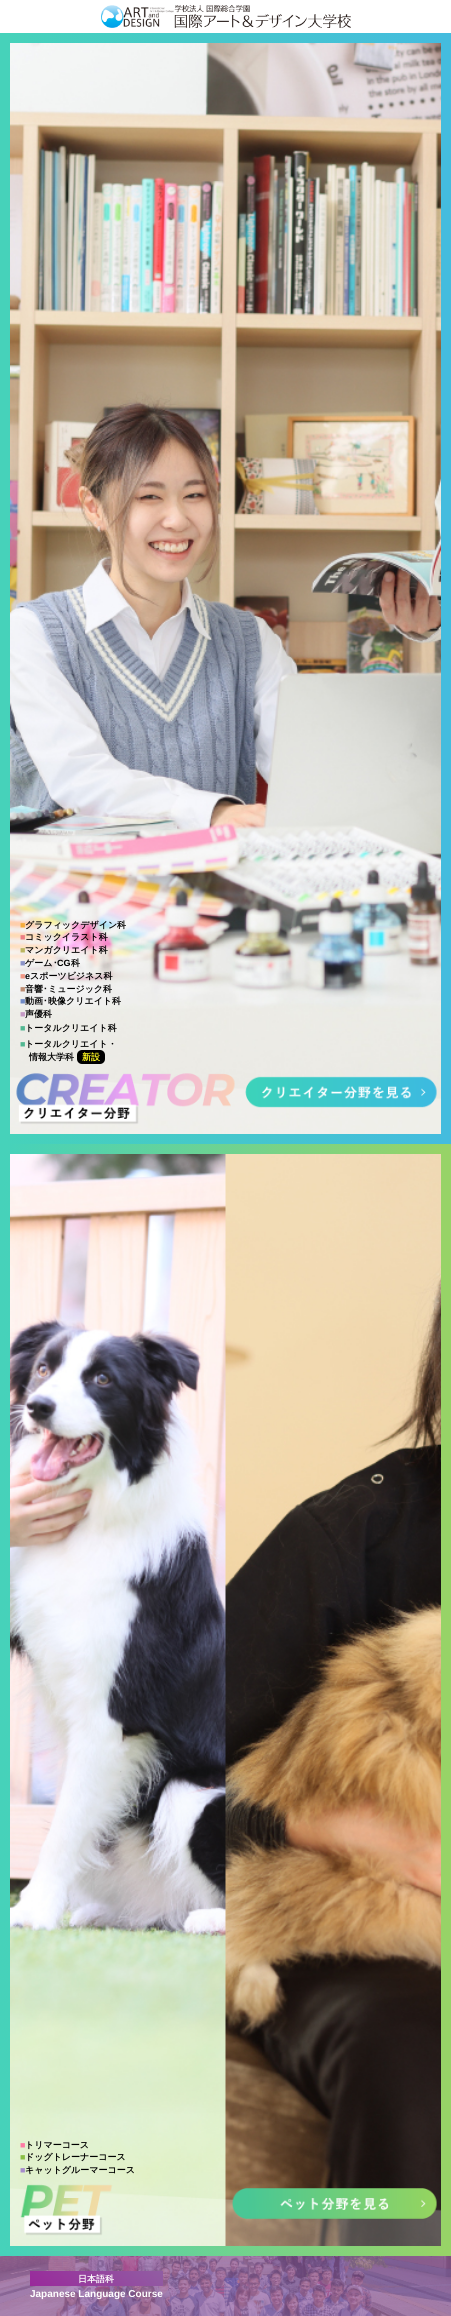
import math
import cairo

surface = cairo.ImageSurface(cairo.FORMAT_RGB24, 451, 2316)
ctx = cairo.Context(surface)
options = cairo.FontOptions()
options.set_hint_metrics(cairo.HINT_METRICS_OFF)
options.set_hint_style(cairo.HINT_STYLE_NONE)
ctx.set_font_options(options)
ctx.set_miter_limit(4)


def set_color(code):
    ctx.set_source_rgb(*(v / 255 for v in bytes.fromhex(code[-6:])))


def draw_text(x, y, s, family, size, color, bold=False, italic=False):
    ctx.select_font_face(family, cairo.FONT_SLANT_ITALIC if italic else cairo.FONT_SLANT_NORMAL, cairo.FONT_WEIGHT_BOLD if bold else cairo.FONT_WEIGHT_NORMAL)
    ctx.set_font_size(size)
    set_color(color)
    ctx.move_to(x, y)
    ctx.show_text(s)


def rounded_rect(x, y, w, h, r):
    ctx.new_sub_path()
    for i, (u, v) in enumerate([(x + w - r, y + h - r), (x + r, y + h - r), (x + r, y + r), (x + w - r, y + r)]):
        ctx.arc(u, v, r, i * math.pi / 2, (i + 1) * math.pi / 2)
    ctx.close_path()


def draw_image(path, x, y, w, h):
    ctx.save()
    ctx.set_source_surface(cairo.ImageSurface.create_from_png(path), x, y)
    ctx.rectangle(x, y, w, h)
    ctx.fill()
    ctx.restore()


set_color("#ffffff")
ctx.paint()
draw_image("assets/img1.png", 101, 5, 250, 23)
draw_image("assets/img2.png", 10, 43, 431, 1091)
draw_image("assets/img3.png", 0, 33, 451, 1111)
draw_text(20, 928, "■", "Liberation Sans", 9, "#f5ac3c", bold=True)
draw_text(25, 928, "グラフィックデザイン科", "WenQuanYi Zen Hei", 9, "#000000", bold=True)
draw_text(20, 940, "■", "Liberation Sans", 9, "#ed7e84", bold=True)
draw_text(25, 940, "コミックイラスト科", "WenQuanYi Zen Hei", 9, "#000000", bold=True)
draw_text(20, 953, "■", "Liberation Sans", 9, "#bcb55f", bold=True)
draw_text(25, 953, "マンガクリエイト科", "WenQuanYi Zen Hei", 9, "#000000", bold=True)
draw_text(20, 966, "■", "Liberation Sans", 9, "#8b92c7", bold=True)
draw_text(25, 966, "ゲーム", "WenQuanYi Zen Hei", 9, "#000000", bold=True)
draw_text(53, 966, "･", "IPAPGothic", 9, "#000000", bold=True)
draw_text(57, 966, "CG", "Liberation Sans", 9, "#000000", bold=True)
draw_text(71, 966, "科", "WenQuanYi Zen Hei", 9, "#000000", bold=True)
draw_text(20, 979, "■", "Liberation Sans", 9, "#f19885", bold=True)
draw_text(25, 979, "e", "Liberation Sans", 9, "#000000", bold=True)
draw_text(30, 979, "スポーツビジネス科", "WenQuanYi Zen Hei", 9, "#000000", bold=True)
draw_text(20, 992, "■", "Liberation Sans", 9, "#bd8d73", bold=True)
draw_text(25, 992, "音響", "WenQuanYi Zen Hei", 9, "#000000", bold=True)
draw_text(43, 992, "･", "IPAPGothic", 9, "#000000", bold=True)
draw_text(48, 992, "ミュージック科", "WenQuanYi Zen Hei", 9, "#000000", bold=True)
draw_text(20, 1004, "■", "Liberation Sans", 9, "#718bc6", bold=True)
draw_text(25, 1004, "動画", "WenQuanYi Zen Hei", 9, "#000000", bold=True)
draw_text(43, 1004, "･", "IPAPGothic", 9, "#000000", bold=True)
draw_text(48, 1004, "映像クリエイト科", "WenQuanYi Zen Hei", 9, "#000000", bold=True)
draw_text(20, 1017, "■", "Liberation Sans", 9, "#c499c4", bold=True)
draw_text(25, 1017, "声優科", "WenQuanYi Zen Hei", 9, "#000000", bold=True)
draw_text(20, 1031, "■", "Liberation Sans", 9, "#52b792", bold=True)
draw_text(25, 1031, "トータルクリエイト科", "WenQuanYi Zen Hei", 9, "#000000", bold=True)
draw_text(20, 1047, "■", "Liberation Sans", 9, "#52b792", bold=True)
draw_text(25, 1047, "トータルクリエイト・", "WenQuanYi Zen Hei", 9, "#000000", bold=True)
draw_text(29, 1060, "情報大学科", "WenQuanYi Zen Hei", 9, "#000000", bold=True)
rounded_rect(77, 1050, 28, 14, 5)
ctx.fill()
draw_text(82, 1060, "新設", "WenQuanYi Zen Hei", 9, "#fffa21", bold=True)
draw_image("assets/img4.png", 10, 1073, 431, 61)
draw_image("assets/img5.png", 10, 1154, 431, 1092)
draw_image("assets/img6.png", 0, 1144, 451, 1112)
draw_text(20, 2148, "■", "Liberation Sans", 9, "#ff7aa4", bold=True)
draw_text(25, 2148, "トリマーコース", "WenQuanYi Zen Hei", 9, "#000000", bold=True)
draw_text(20, 2160, "■", "Liberation Sans", 9, "#8abf44", bold=True)
draw_text(25, 2160, "ドッグトレーナーコース", "WenQuanYi Zen Hei", 9, "#000000", bold=True)
draw_text(20, 2173, "■", "Liberation Sans", 9, "#a68ccc", bold=True)
draw_text(25, 2173, "キャットグルーマーコース", "WenQuanYi Zen Hei", 9, "#000000", bold=True)
draw_image("assets/img7.png", 10, 2184, 431, 62)
draw_image("assets/img8.png", 0, 2256, 451, 60)
gradient = cairo.LinearGradient(60, 2316, 134, 2242)
gradient.add_color_stop_rgba(0, 0.6, 0.161, 0.608, 1)
gradient.add_color_stop_rgba(1, 0.569, 0.365, 0.639, 1)
ctx.set_source(gradient)
ctx.rectangle(30, 2271, 133, 15)
ctx.fill()
draw_text(78, 2282, "日本語科", "WenQuanYi Zen Hei", 9, "#ffffff", bold=True)
draw_text(30, 2297, "Japanese Language Course", "Liberation Sans", 10, "#ffffff", bold=True)
surface.write_to_png("output.png")
